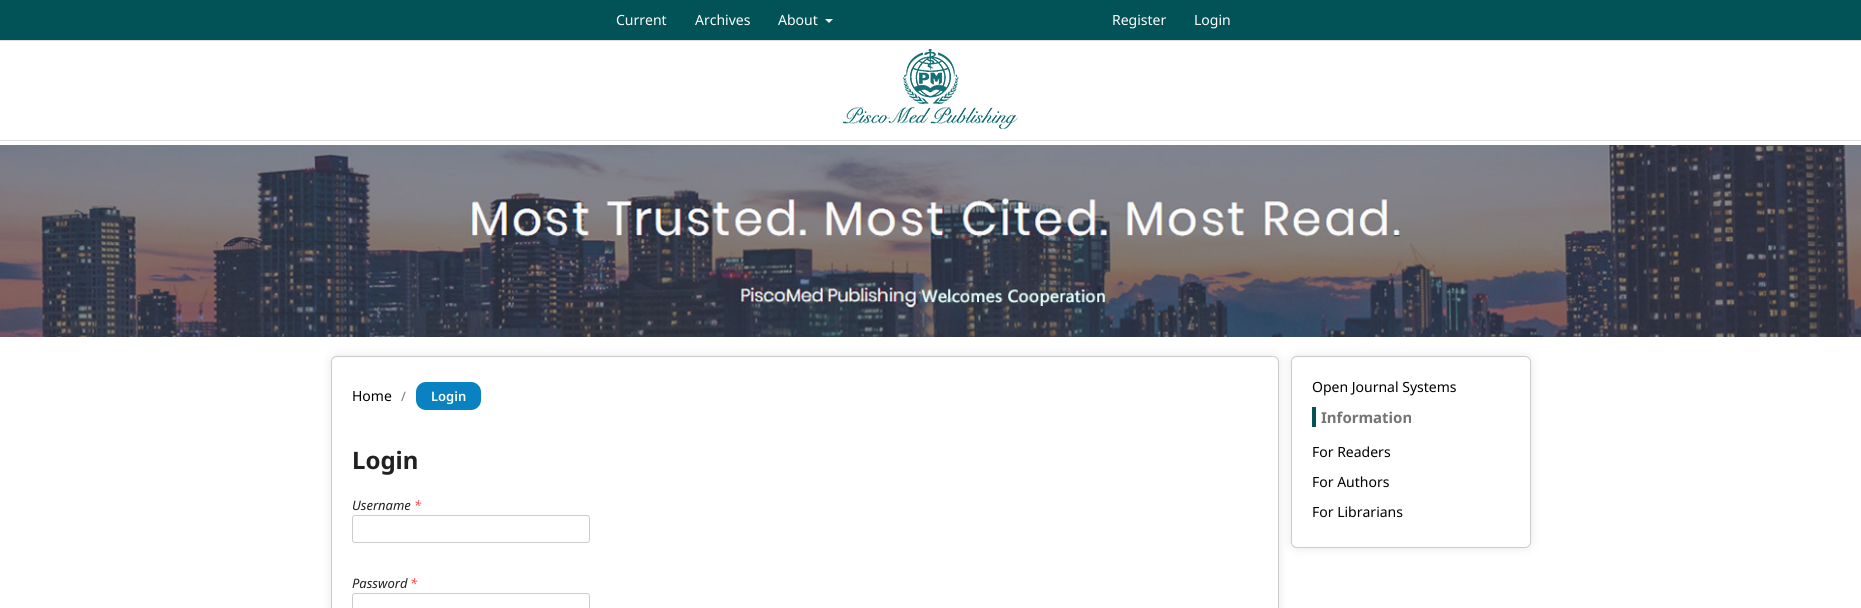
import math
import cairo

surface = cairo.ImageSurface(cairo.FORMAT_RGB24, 1861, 608)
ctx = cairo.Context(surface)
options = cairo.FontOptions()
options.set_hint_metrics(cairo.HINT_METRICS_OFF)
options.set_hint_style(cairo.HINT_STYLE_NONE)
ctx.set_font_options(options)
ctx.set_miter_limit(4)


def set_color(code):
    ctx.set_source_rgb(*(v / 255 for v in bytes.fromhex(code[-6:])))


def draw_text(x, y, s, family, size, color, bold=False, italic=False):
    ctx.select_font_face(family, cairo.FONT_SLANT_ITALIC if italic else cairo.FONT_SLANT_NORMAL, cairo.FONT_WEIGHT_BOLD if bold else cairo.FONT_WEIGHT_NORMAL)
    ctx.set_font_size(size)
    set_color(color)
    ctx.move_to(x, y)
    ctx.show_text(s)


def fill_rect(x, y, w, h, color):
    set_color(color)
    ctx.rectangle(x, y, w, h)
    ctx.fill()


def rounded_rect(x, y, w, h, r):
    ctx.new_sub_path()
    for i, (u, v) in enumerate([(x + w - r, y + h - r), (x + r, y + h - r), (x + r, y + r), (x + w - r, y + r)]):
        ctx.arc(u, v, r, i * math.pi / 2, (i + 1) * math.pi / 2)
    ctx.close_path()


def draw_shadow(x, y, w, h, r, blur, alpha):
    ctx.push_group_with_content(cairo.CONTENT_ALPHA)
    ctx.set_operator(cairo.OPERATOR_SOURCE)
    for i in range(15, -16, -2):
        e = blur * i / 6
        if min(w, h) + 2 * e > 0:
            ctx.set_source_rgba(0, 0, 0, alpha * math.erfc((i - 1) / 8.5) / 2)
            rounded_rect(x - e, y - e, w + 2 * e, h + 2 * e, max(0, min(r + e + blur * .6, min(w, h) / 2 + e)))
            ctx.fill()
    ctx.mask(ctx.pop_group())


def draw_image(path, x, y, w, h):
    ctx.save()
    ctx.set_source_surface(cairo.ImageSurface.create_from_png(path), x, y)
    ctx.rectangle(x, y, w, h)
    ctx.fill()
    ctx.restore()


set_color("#ffffff")
ctx.paint()
fill_rect(0, 0, 1861, 40, "#015357")
fill_rect(0, 40, 1861, 1, "#dddddd")
draw_text(616, 25, "Current", "Noto Sans", 14, "#ffffff")
draw_text(695, 25, "Archives", "Noto Sans", 14, "#ffffff")
draw_text(778, 25, "About", "Noto Sans", 14, "#ffffff")
ctx.new_path()
ctx.move_to(825, 19)
ctx.line_to(833, 19)
ctx.line_to(829, 23)
ctx.close_path()
ctx.fill()
draw_text(1112, 25, "Register", "Noto Sans", 14, "#ffffff")
draw_text(1194, 25, "Login", "Noto Sans", 14, "#ffffff")
fill_rect(0, 140, 1861, 1, "#dddddd")
draw_image("assets/img1.png", 843, 49, 175, 80)
draw_image("assets/img2.png", 0, 145, 1861, 192)
set_color("#000000")
draw_shadow(1291, 356, 240, 192, 6, 5, 0.1)
set_color("#ffffff")
rounded_rect(1291.5, 356.5, 239, 191, 5.5)
ctx.fill_preserve()
set_color("#cccccc")
ctx.set_line_width(1)
ctx.stroke()
set_color("#000000")
draw_shadow(331, 356, 948, 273, 6, 5, 0.1)
set_color("#ffffff")
rounded_rect(331.5, 356.5, 947, 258, 5.5)
ctx.fill_preserve()
set_color("#cccccc")
ctx.stroke()
draw_text(352, 401, "Home", "Noto Sans", 14, "#000000")
draw_text(401, 401, "/", "Noto Sans", 13, "#757575")
set_color("#0882c1")
rounded_rect(416, 382, 65, 28, 10)
ctx.fill()
draw_text(431, 401, "Login", "Noto Sans SemiBold", 13, "#ffffff")
draw_text(352, 469, "Login", "Noto Sans", 24, "#212121", bold=True)
draw_text(352, 510, "Username", "Noto Sans", 13, "#212121", italic=True)
draw_text(414, 510, "*", "Noto Sans", 13, "#ff4040", italic=True)
rounded_rect(352.5, 515.5, 237, 27, 2.5)
set_color("#cccccc")
ctx.stroke()
draw_text(352, 588, "Password", "Noto Sans", 13, "#212121", italic=True)
draw_text(410, 588, "*", "Noto Sans", 13, "#ff4040", italic=True)
rounded_rect(352.5, 593.5, 237, 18, 2.5)
set_color("#cccccc")
ctx.stroke()
draw_text(1312, 392, "Open Journal Systems", "Noto Sans", 14, "#000000")
fill_rect(1312, 407, 4, 20, "#015357")
draw_text(1321, 423, "Information", "Noto Sans", 15, "#757575", bold=True)
draw_text(1312, 457, "For Readers", "Noto Sans", 14, "#000000")
draw_text(1312, 487, "For Authors", "Noto Sans", 14, "#000000")
draw_text(1312, 517, "For Librarians", "Noto Sans", 14, "#000000")
surface.write_to_png("output.png")
